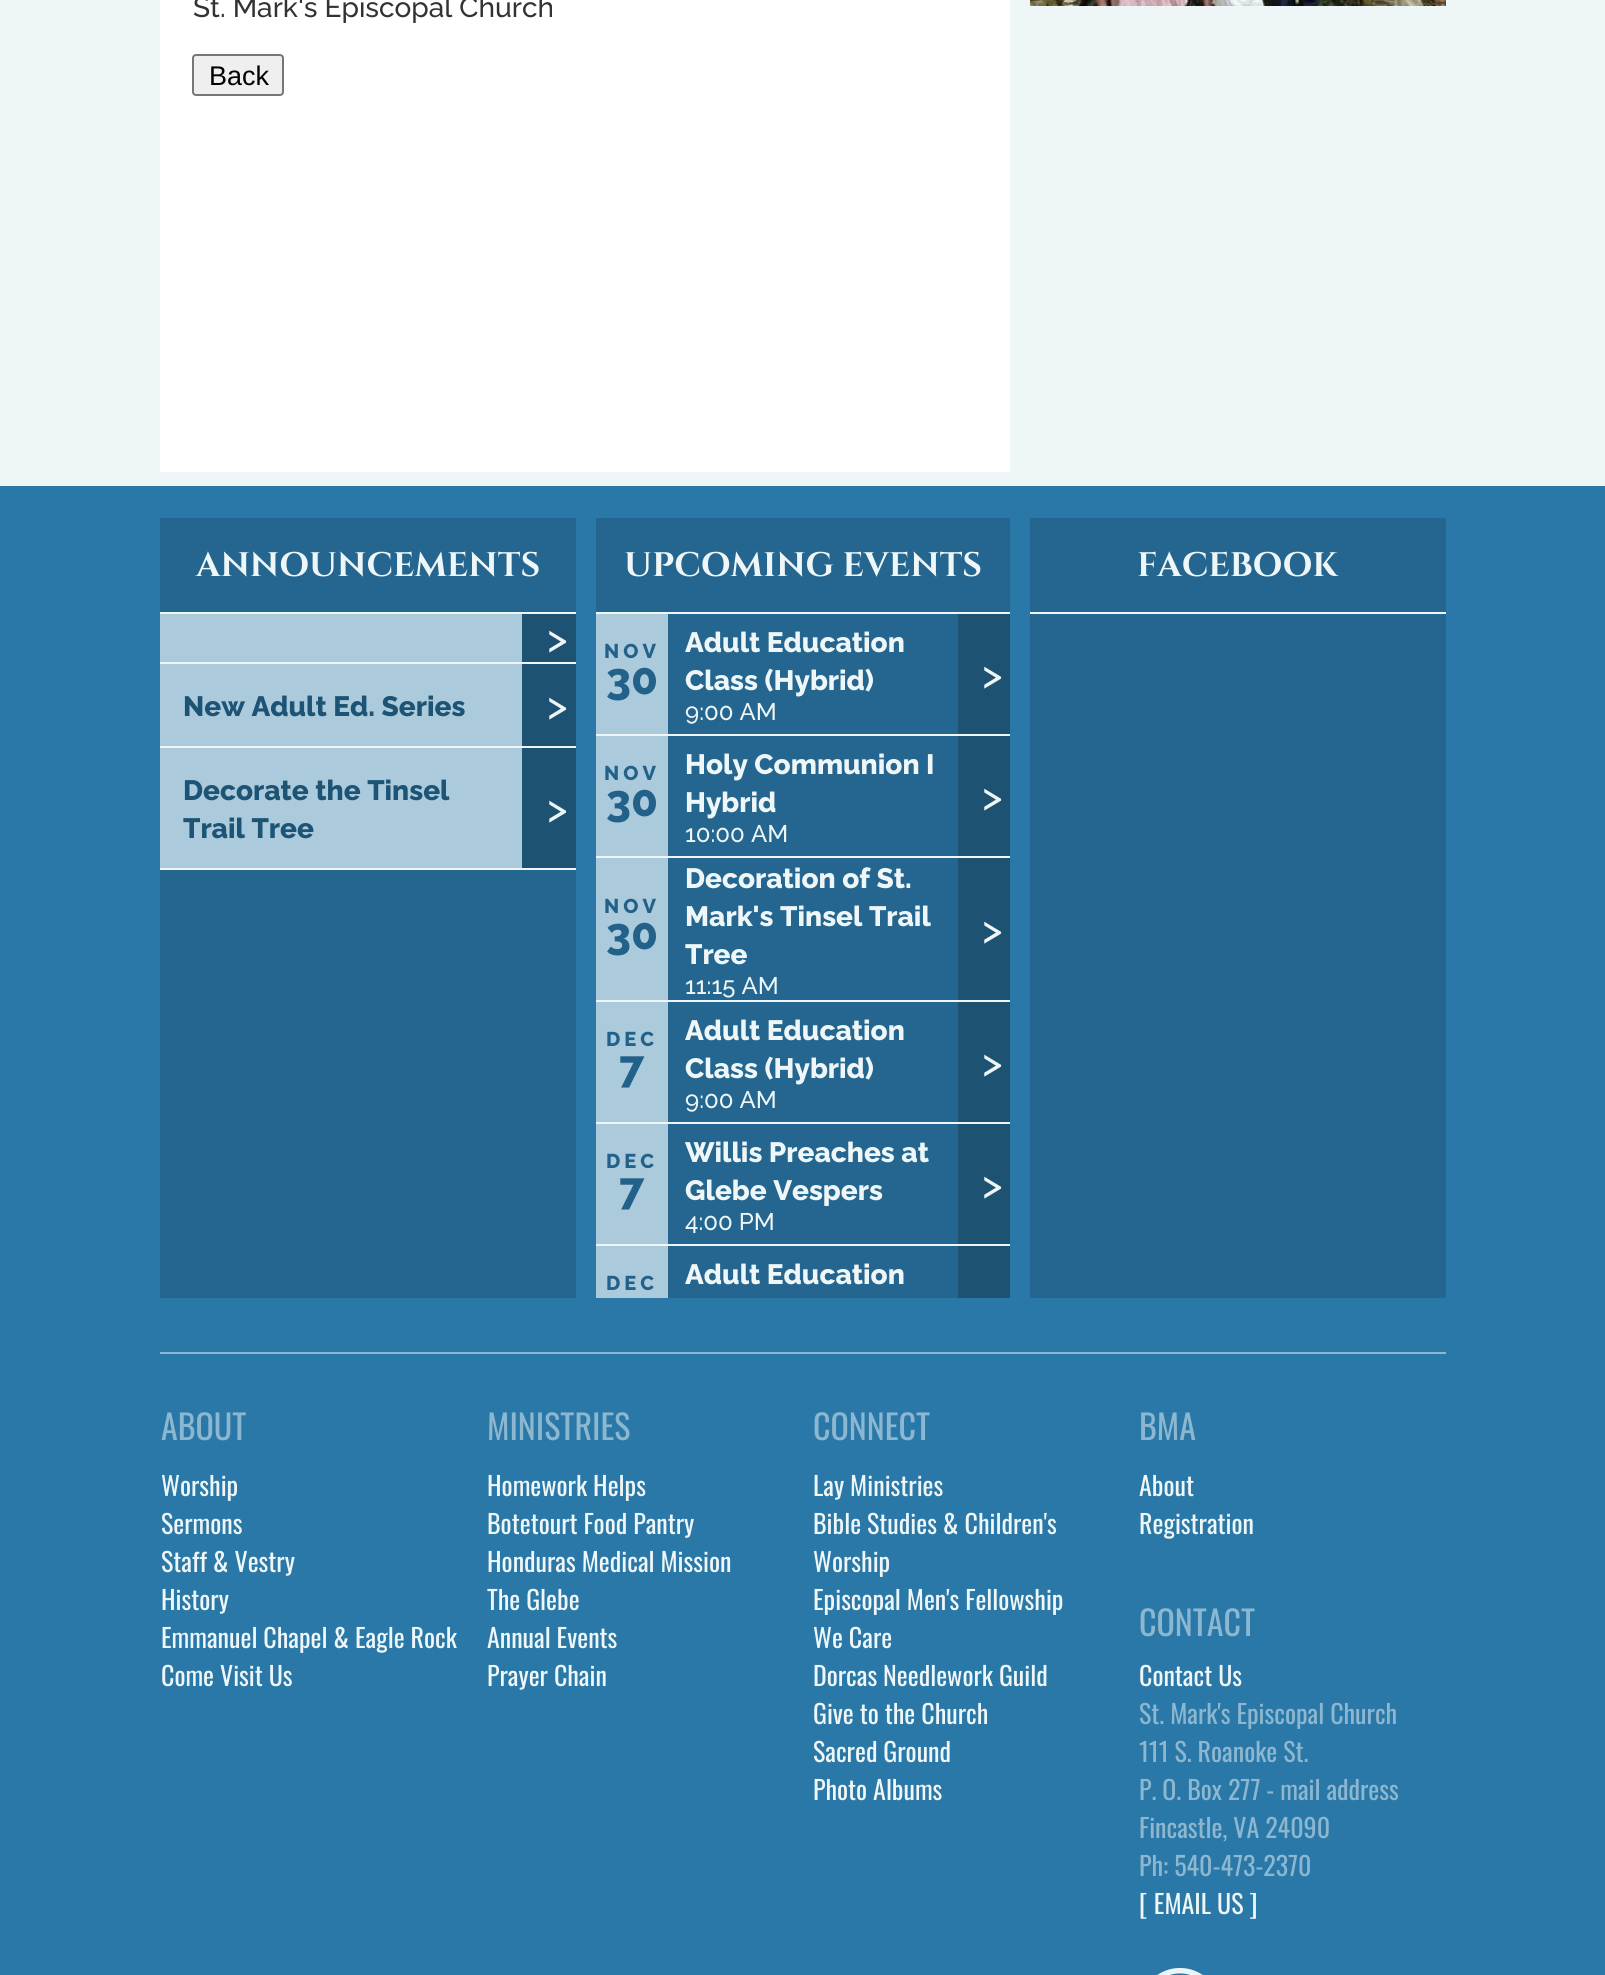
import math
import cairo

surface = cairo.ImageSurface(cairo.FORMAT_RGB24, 1605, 1975)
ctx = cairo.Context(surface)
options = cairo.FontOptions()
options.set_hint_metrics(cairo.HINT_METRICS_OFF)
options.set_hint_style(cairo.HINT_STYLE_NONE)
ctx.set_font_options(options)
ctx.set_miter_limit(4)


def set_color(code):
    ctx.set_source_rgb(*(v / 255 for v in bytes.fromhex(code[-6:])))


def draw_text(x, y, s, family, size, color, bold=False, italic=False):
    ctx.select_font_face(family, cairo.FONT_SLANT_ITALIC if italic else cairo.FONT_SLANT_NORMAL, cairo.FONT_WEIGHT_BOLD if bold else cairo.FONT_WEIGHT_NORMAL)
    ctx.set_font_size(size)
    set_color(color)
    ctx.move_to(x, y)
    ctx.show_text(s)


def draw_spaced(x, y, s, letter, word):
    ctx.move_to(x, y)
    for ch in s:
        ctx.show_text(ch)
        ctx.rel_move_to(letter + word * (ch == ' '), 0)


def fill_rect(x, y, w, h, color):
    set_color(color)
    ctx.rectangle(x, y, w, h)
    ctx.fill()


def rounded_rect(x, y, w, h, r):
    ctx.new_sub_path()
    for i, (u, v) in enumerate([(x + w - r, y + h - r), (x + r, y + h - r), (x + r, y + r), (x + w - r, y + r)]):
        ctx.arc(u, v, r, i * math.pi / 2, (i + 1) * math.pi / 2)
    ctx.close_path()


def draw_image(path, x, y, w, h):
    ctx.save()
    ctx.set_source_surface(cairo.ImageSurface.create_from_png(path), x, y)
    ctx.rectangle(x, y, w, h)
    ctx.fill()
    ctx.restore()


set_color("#eef6f7")
ctx.paint()
fill_rect(160, 0, 850, 472, "#ffffff")
draw_text(193, 17, "St. Mark's Episcopal Church", "Raleway Medium", 28, "#333333")
set_color("#efefef")
rounded_rect(193, 55, 90, 40, 3)
ctx.fill_preserve()
set_color("#767676")
ctx.stroke()
draw_text(209, 85, "Back", "Liberation Sans", 27, "#000000")
draw_image("assets/img1.png", 1030, 0, 416, 6)
fill_rect(0, 486, 1605, 1489, "#2a78a8")
fill_rect(160, 518, 416, 94, "#24668f")
fill_rect(160, 612, 416, 2, "#eef6f7")
draw_text(196, 576, "ANNOUNCEMENTS", "Cinzel", 34, "#eef6f7", bold=True)
fill_rect(160, 870, 416, 428, "#24668f")
fill_rect(160, 614, 362, 48, "#abcbdc")
fill_rect(160, 662, 416, 2, "#eef6f7")
fill_rect(522, 614, 54, 48, "#1d5272")
draw_text(547, 652, ">", "Raleway Medium", 40, "#eef6f7")
fill_rect(160, 664, 362, 82, "#abcbdc")
fill_rect(160, 746, 416, 2, "#eef6f7")
draw_text(183, 716, "New Adult Ed. Series", "Raleway ExtraBold", 28, "#1d5475")
fill_rect(522, 664, 54, 82, "#1d5272")
draw_text(547, 719, ">", "Raleway Medium", 40, "#eef6f7")
fill_rect(160, 748, 362, 120, "#abcbdc")
fill_rect(160, 868, 416, 2, "#eef6f7")
draw_text(183, 800, "Decorate the Tinsel", "Raleway ExtraBold", 28, "#1d5475")
draw_text(183, 838, "Trail Tree", "Raleway ExtraBold", 28, "#1d5475")
fill_rect(522, 748, 54, 120, "#1d5272")
draw_text(547, 822, ">", "Raleway Medium", 40, "#eef6f7")
fill_rect(596, 518, 414, 94, "#24668f")
fill_rect(596, 612, 414, 2, "#eef6f7")
draw_text(624, 576, "UPCOMING EVENTS", "Cinzel", 34, "#eef6f7", bold=True)
fill_rect(668, 614, 290, 684, "#24668f")
fill_rect(596, 614, 72, 120, "#abcbdc")
fill_rect(596, 734, 414, 2, "#eef6f7")
ctx.select_font_face("Raleway ExtraBold")
ctx.set_font_size(20)
set_color("#22628a")
draw_spaced(604, 658, "NOV", 4, 0)
draw_text(606, 694, "30", "Raleway ExtraBold", 44, "#22628a")
draw_text(685, 652, "Adult Education", "Raleway ExtraBold", 28, "#eef6f7")
draw_text(685, 690, "Class (Hybrid)", "Raleway ExtraBold", 28, "#eef6f7")
draw_text(685, 720, "9:00 AM", "Raleway Medium", 24, "#eef6f7")
fill_rect(958, 614, 52, 120, "#1d5272")
draw_text(982, 688, ">", "Raleway Medium", 40, "#eef6f7")
fill_rect(596, 736, 72, 120, "#abcbdc")
fill_rect(596, 856, 414, 2, "#eef6f7")
ctx.select_font_face("Raleway ExtraBold")
ctx.set_font_size(20)
set_color("#22628a")
draw_spaced(604, 780, "NOV", 4, 0)
draw_text(606, 816, "30", "Raleway ExtraBold", 44, "#22628a")
draw_text(685, 774, "Holy Communion I", "Raleway ExtraBold", 28, "#eef6f7")
draw_text(685, 812, "Hybrid", "Raleway ExtraBold", 28, "#eef6f7")
draw_text(685, 842, "10:00 AM", "Raleway Medium", 24, "#eef6f7")
fill_rect(958, 736, 52, 120, "#1d5272")
draw_text(982, 810, ">", "Raleway Medium", 40, "#eef6f7")
fill_rect(596, 858, 72, 142, "#abcbdc")
fill_rect(596, 1000, 414, 2, "#eef6f7")
ctx.select_font_face("Raleway ExtraBold")
ctx.set_font_size(20)
set_color("#22628a")
draw_spaced(604, 913, "NOV", 4, 0)
draw_text(606, 949, "30", "Raleway ExtraBold", 44, "#22628a")
draw_text(685, 888, "Decoration of St.", "Raleway ExtraBold", 28, "#eef6f7")
draw_text(685, 926, "Mark's Tinsel Trail", "Raleway ExtraBold", 28, "#eef6f7")
draw_text(685, 964, "Tree", "Raleway ExtraBold", 28, "#eef6f7")
draw_text(685, 994, "11:15 AM", "Raleway Medium", 24, "#eef6f7")
fill_rect(958, 858, 52, 142, "#1d5272")
draw_text(982, 943, ">", "Raleway Medium", 40, "#eef6f7")
fill_rect(596, 1002, 72, 120, "#abcbdc")
fill_rect(596, 1122, 414, 2, "#eef6f7")
ctx.select_font_face("Raleway ExtraBold")
ctx.set_font_size(20)
set_color("#22628a")
draw_spaced(606, 1046, "DEC", 4, 0)
draw_text(619, 1082, "7", "Raleway ExtraBold", 44, "#22628a")
draw_text(685, 1040, "Adult Education", "Raleway ExtraBold", 28, "#eef6f7")
draw_text(685, 1078, "Class (Hybrid)", "Raleway ExtraBold", 28, "#eef6f7")
draw_text(685, 1108, "9:00 AM", "Raleway Medium", 24, "#eef6f7")
fill_rect(958, 1002, 52, 120, "#1d5272")
draw_text(982, 1076, ">", "Raleway Medium", 40, "#eef6f7")
fill_rect(596, 1124, 72, 120, "#abcbdc")
fill_rect(596, 1244, 414, 2, "#eef6f7")
ctx.select_font_face("Raleway ExtraBold")
ctx.set_font_size(20)
set_color("#22628a")
draw_spaced(606, 1168, "DEC", 4, 0)
draw_text(619, 1204, "7", "Raleway ExtraBold", 44, "#22628a")
draw_text(685, 1162, "Willis Preaches at", "Raleway ExtraBold", 28, "#eef6f7")
draw_text(685, 1200, "Glebe Vespers", "Raleway ExtraBold", 28, "#eef6f7")
draw_text(685, 1230, "4:00 PM", "Raleway Medium", 24, "#eef6f7")
fill_rect(958, 1124, 52, 120, "#1d5272")
draw_text(982, 1198, ">", "Raleway Medium", 40, "#eef6f7")
fill_rect(596, 1246, 72, 52, "#abcbdc")
ctx.select_font_face("Raleway ExtraBold")
ctx.set_font_size(20)
set_color("#22628a")
draw_spaced(606, 1290, "DEC", 4, 0)
draw_text(685, 1284, "Adult Education", "Raleway ExtraBold", 28, "#eef6f7")
fill_rect(958, 1246, 52, 52, "#1d5272")
fill_rect(1030, 518, 416, 94, "#24668f")
fill_rect(1030, 612, 416, 2, "#eef6f7")
draw_text(1137, 576, "FACEBOOK", "Cinzel", 34, "#eef6f7", bold=True)
fill_rect(1030, 614, 416, 684, "#24668f")
fill_rect(160, 1352, 1286, 2, "#8cb7d0")
draw_text(161, 1440, "ABOUT", "Oswald", 34, "#8cb7d0")
draw_text(161, 1496, "Worship", "Oswald", 26, "#eef6f7")
draw_text(161, 1534, "Sermons", "Oswald", 26, "#eef6f7")
draw_text(161, 1572, "Staff & Vestry", "Oswald", 26, "#eef6f7")
draw_text(161, 1610, "History", "Oswald", 26, "#eef6f7")
draw_text(161, 1648, "Emmanuel Chapel & Eagle Rock", "Oswald", 26, "#eef6f7")
draw_text(161, 1686, "Come Visit Us", "Oswald", 26, "#eef6f7")
draw_text(487, 1440, "MINISTRIES", "Oswald", 34, "#8cb7d0")
draw_text(487, 1496, "Homework Helps", "Oswald", 26, "#eef6f7")
draw_text(487, 1534, "Botetourt Food Pantry", "Oswald", 26, "#eef6f7")
draw_text(487, 1572, "Honduras Medical Mission", "Oswald", 26, "#eef6f7")
draw_text(487, 1610, "The Glebe", "Oswald", 26, "#eef6f7")
draw_text(487, 1648, "Annual Events", "Oswald", 26, "#eef6f7")
draw_text(487, 1686, "Prayer Chain", "Oswald", 26, "#eef6f7")
draw_text(813, 1440, "CONNECT", "Oswald", 34, "#8cb7d0")
draw_text(813, 1496, "Lay Ministries", "Oswald", 26, "#eef6f7")
draw_text(813, 1534, "Bible Studies & Children's", "Oswald", 26, "#eef6f7")
draw_text(813, 1572, "Worship", "Oswald", 26, "#eef6f7")
draw_text(813, 1610, "Episcopal Men's Fellowship", "Oswald", 26, "#eef6f7")
draw_text(813, 1648, "We Care", "Oswald", 26, "#eef6f7")
draw_text(813, 1686, "Dorcas Needlework Guild", "Oswald", 26, "#eef6f7")
draw_text(813, 1724, "Give to the Church", "Oswald", 26, "#eef6f7")
draw_text(813, 1762, "Sacred Ground", "Oswald", 26, "#eef6f7")
draw_text(813, 1800, "Photo Albums", "Oswald", 26, "#eef6f7")
draw_text(1139, 1440, "BMA", "Oswald", 34, "#8cb7d0")
draw_text(1139, 1496, "About", "Oswald", 26, "#eef6f7")
draw_text(1139, 1534, "Registration", "Oswald", 26, "#eef6f7")
draw_text(1139, 1636, "CONTACT", "Oswald", 34, "#8cb7d0")
draw_text(1139, 1686, "Contact Us", "Oswald", 26, "#eef6f7")
draw_text(1139, 1724, "St. Mark's Episcopal Church", "Oswald", 26, "#8cb7d0")
draw_text(1139, 1762, "111 S. Roanoke St.", "Oswald", 26, "#8cb7d0")
draw_text(1139, 1800, "P. O. Box 277 - mail address", "Oswald", 26, "#8cb7d0")
draw_text(1139, 1838, "Fincastle, VA 24090", "Oswald", 26, "#8cb7d0")
draw_text(1139, 1876, "Ph: 540-473-2370", "Oswald", 26, "#8cb7d0")
draw_text(1139, 1914, "[ EMAIL US ]", "Oswald", 26, "#eef6f7")
draw_image("assets/img2.png", 1157, 1968, 46, 7)
surface.write_to_png("output.png")
